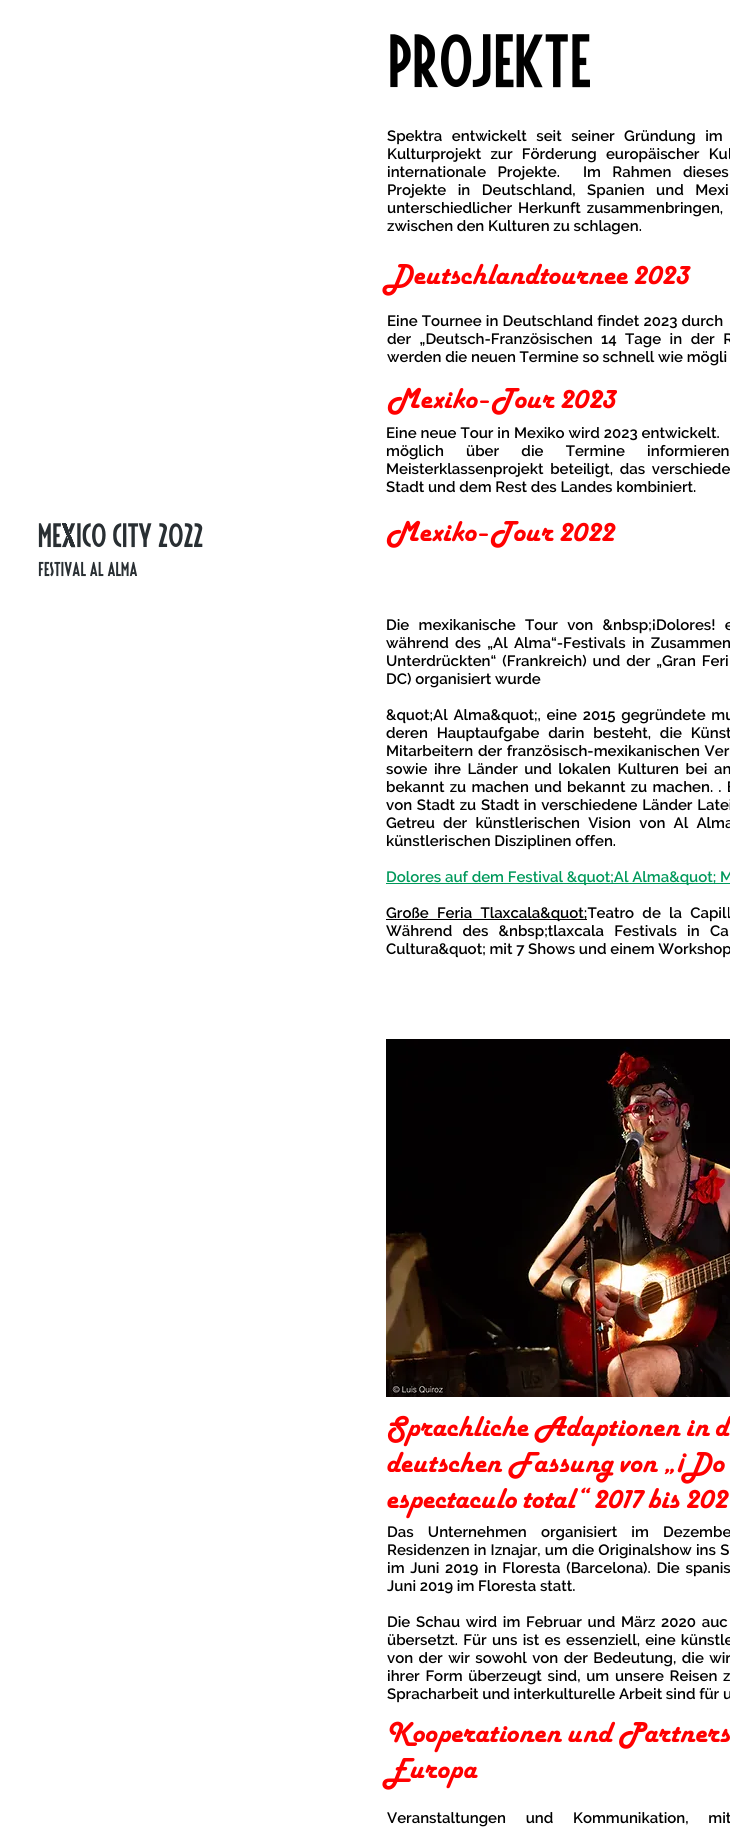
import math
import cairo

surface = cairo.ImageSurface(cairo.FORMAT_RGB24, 730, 1832)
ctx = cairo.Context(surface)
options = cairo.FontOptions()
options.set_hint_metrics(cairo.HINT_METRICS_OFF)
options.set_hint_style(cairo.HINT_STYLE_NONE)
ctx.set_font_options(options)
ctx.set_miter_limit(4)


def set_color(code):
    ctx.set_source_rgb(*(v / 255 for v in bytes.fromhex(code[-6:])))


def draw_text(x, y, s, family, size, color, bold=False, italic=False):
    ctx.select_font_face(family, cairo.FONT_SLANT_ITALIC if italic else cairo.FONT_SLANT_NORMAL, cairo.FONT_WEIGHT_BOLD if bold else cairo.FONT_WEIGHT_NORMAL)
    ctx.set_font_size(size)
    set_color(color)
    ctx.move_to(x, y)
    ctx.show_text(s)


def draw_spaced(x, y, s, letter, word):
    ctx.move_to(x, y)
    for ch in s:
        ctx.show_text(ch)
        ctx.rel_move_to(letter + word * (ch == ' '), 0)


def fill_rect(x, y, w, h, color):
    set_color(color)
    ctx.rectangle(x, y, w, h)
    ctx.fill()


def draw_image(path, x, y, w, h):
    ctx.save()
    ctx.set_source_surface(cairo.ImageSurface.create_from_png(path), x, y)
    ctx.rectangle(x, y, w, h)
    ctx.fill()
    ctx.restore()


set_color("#ffffff")
ctx.paint()
draw_text(387, 87, "Projekte", "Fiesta", 60, "#000000")
ctx.select_font_face("Raleway SemiBold")
ctx.set_font_size(15)
draw_spaced(387, 141, "Spektra entwickelt seit seiner Gründung im", 0, 5.75)
draw_spaced(387, 159, "Kulturprojekt zur Förderung europäischer Kul", 0, 5.5)
draw_spaced(387, 177, "internationale Projekte.  Im Rahmen dieses", 0, 7.75)
draw_spaced(387, 195, "Projekte in Deutschland, Spanien und Mexi", 0, 7.75)
draw_spaced(387, 213, "unterschiedlicher Herkunft zusammenbringen,", 0, 2.25)
draw_text(387, 231, "zwischen den Kulturen zu schlagen.", "Raleway SemiBold", 15, "#000000")
draw_text(387, 284, "Deutschlandtournee 2023", "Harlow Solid", 30, "#ff0101")
ctx.select_font_face("Raleway SemiBold")
ctx.set_font_size(15)
set_color("#000000")
draw_spaced(387, 326, "Eine Tournee in Deutschland findet 2023 durch", 0, 0.5)
draw_spaced(387, 344, "der „Deutsch-Französischen 14 Tage in der R", 0, 4.75)
draw_text(387, 362, "werden die neuen Termine so schnell wie mögli", "Raleway SemiBold", 15, "#000000")
draw_text(387, 408, "Mexiko-Tour 2023", "Harlow Solid", 30, "#ff0101")
ctx.select_font_face("Raleway SemiBold")
ctx.set_font_size(15)
set_color("#000000")
draw_spaced(386, 438, "Eine neue Tour in Mexiko wird 2023 entwickelt.", 0, 0.25)
draw_spaced(386, 456, "möglich über die Termine informieren", 0, 18.5)
draw_spaced(386, 474, "Meisterklassenprojekt beteiligt, das verschiede", 0, 3)
draw_text(386, 492, "Stadt und dem Rest des Landes kombiniert.", "Raleway SemiBold", 15, "#000000")
draw_text(38, 547, "Mexico City 2022", "Fiesta", 27, "#292f33")
draw_text(38, 576, "Festival Al Alma", "Fiesta", 16, "#292f33")
draw_text(386, 541, "Mexiko-Tour 2022", "Harlow Solid", 30, "#ff0101")
ctx.select_font_face("Raleway SemiBold")
ctx.set_font_size(15)
set_color("#000000")
draw_spaced(386, 630, "Die mexikanische Tour von &nbsp;¡Dolores! e", 0, 5.5)
draw_spaced(386, 648, "während des „Al Alma“-Festivals in Zusammen", 0, 2.5)
draw_spaced(386, 666, "Unterdrückten“ (Frankreich) und der „Gran Feri", 0, 2.25)
draw_text(386, 684, "DC) organisiert wurde", "Raleway SemiBold", 15, "#000000")
draw_spaced(386, 720, "&quot;Al Alma&quot;, eine 2015 gegründete mu", 0, 2)
draw_spaced(386, 738, "deren Hauptaufgabe darin besteht, die Künst", 0, 5)
draw_spaced(386, 756, "Mitarbeitern der französisch-mexikanischen Ver", 0, 1)
draw_spaced(386, 774, "sowie ihre Länder und lokalen Kulturen bei an", 0, 2.75)
draw_spaced(386, 792, "bekannt zu machen und bekannt zu machen. . E", 0, 1.5)
draw_spaced(386, 810, "von Stadt zu Stadt in verschiedene Länder Latei", 0, 1)
draw_spaced(386, 828, "Getreu der künstlerischen Vision von Al Alma", 0, 4.5)
draw_text(386, 846, "künstlerischen Disziplinen offen.", "Raleway SemiBold", 15, "#000000")
fill_rect(386, 883, 344, 1, "#00995b")
draw_text(386, 882, "Dolores auf dem Festival &quot;Al Alma&quot; M", "Raleway SemiBold", 15, "#00995b")
fill_rect(386, 919, 201, 1, "#000000")
draw_spaced(386, 918, "Große Feria Tlaxcala&quot;Teatro de la Capill", 0, 4.5)
draw_spaced(386, 936, "Während des &nbsp;tlaxcala Festivals in Ca", 0, 6.5)
draw_text(386, 954, "Cultura&quot; mit 7 Shows und einem Workshop", "Raleway SemiBold", 15, "#000000")
draw_image("assets/img1.png", 386, 1039, 344, 358)
draw_text(387, 1436, "Sprachliche Adaptionen in d", "Harlow Solid", 30, "#ff0101")
draw_text(387, 1472, "deutschen Fassung von „¡Do", "Harlow Solid", 30, "#ff0101")
draw_text(387, 1508, "espectaculo total“ 2017 bis 202", "Harlow Solid", 30, "#ff0101")
ctx.select_font_face("Raleway SemiBold")
ctx.set_font_size(15)
set_color("#000000")
draw_spaced(387, 1537, "Das Unternehmen organisiert im Dezembe", 0, 10.5)
draw_spaced(387, 1555, "Residenzen in Iznajar, um die Originalshow ins S", 0, 0.5)
draw_spaced(387, 1573, "im Juni 2019 in Floresta (Barcelona). Die spanis", 0, 2)
draw_text(387, 1591, "Juni 2019 im Floresta statt.", "Raleway SemiBold", 15, "#000000")
draw_spaced(387, 1627, "Die Schau wird im Februar und März 2020 auc", 0, 2)
draw_spaced(387, 1645, "übersetzt. Für uns ist es essenziell, eine künstle", 0, 1.5)
draw_spaced(387, 1663, "von der wir sowohl von der Bedeutung, die wir", 0, 1.75)
draw_spaced(387, 1681, "ihrer Form überzeugt sind, um unsere Reisen z", 0, 2)
draw_text(387, 1699, "Spracharbeit und interkulturelle Arbeit sind für u", "Raleway SemiBold", 15, "#000000")
draw_text(387, 1742, "Kooperationen und Partners", "Harlow Solid", 30, "#ff0101")
draw_text(387, 1778, "Europa", "Harlow Solid", 30, "#ff0101")
ctx.select_font_face("Raleway SemiBold")
ctx.set_font_size(15)
set_color("#000000")
draw_spaced(387, 1823, "Veranstaltungen und Kommunikation, mit", 0, 16)
surface.write_to_png("output.png")
